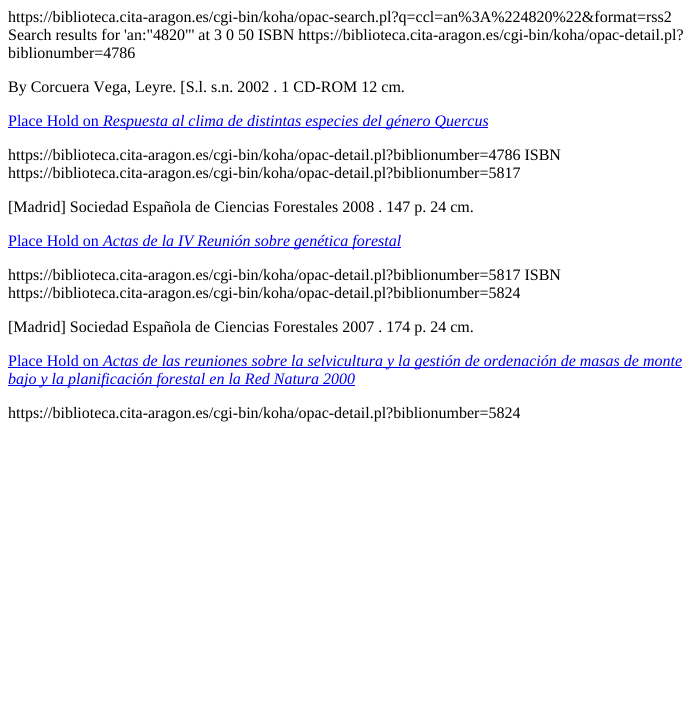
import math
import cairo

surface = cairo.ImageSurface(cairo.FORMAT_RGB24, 696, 717)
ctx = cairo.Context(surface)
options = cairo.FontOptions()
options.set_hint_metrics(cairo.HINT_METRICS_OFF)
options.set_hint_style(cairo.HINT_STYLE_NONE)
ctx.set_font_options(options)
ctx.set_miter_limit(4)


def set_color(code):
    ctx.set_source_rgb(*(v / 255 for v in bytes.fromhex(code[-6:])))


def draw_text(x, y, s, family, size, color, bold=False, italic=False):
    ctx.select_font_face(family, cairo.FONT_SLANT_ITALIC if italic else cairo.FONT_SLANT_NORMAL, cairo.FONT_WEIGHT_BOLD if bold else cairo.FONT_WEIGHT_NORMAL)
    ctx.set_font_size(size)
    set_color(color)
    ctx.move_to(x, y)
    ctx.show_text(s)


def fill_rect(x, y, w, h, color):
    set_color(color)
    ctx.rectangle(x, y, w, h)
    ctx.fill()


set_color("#ffffff")
ctx.paint()
draw_text(8, 22, "https://biblioteca.cita-aragon.es/cgi-bin/koha/opac-search.pl?q=ccl=an%3A%224820%22&format=rss2", "Liberation Serif", 16, "#000000")
draw_text(8, 40, "Search results for 'an:\"4820\"' at 3 0 50 ISBN https://biblioteca.cita-aragon.es/cgi-bin/koha/opac-detail.pl?", "Liberation Serif", 16, "#000000")
draw_text(8, 58, "biblionumber=4786", "Liberation Serif", 16, "#000000")
draw_text(8, 92, "By Corcuera Vega, Leyre. [S.l. s.n. 2002 . 1 CD-ROM 12 cm.", "Liberation Serif", 16, "#000000")
draw_text(8, 126, "Place Hold on", "Liberation Serif", 16, "#0000ee")
fill_rect(8, 127, 480, 1, "#0000ee")
draw_text(103, 126, "Respuesta al clima de distintas especies del género Quercus", "Liberation Serif", 16, "#0000ee", italic=True)
draw_text(8, 160, "https://biblioteca.cita-aragon.es/cgi-bin/koha/opac-detail.pl?biblionumber=4786 ISBN", "Liberation Serif", 16, "#000000")
draw_text(8, 178, "https://biblioteca.cita-aragon.es/cgi-bin/koha/opac-detail.pl?biblionumber=5817", "Liberation Serif", 16, "#000000")
draw_text(8, 212, "[Madrid] Sociedad Española de Ciencias Forestales 2008 . 147 p. 24 cm.", "Liberation Serif", 16, "#000000")
draw_text(8, 246, "Place Hold on", "Liberation Serif", 16, "#0000ee")
fill_rect(8, 247, 393, 1, "#0000ee")
draw_text(103, 246, "Actas de la IV Reunión sobre genética forestal", "Liberation Serif", 16, "#0000ee", italic=True)
draw_text(8, 280, "https://biblioteca.cita-aragon.es/cgi-bin/koha/opac-detail.pl?biblionumber=5817 ISBN", "Liberation Serif", 16, "#000000")
draw_text(8, 298, "https://biblioteca.cita-aragon.es/cgi-bin/koha/opac-detail.pl?biblionumber=5824", "Liberation Serif", 16, "#000000")
draw_text(8, 332, "[Madrid] Sociedad Española de Ciencias Forestales 2007 . 174 p. 24 cm.", "Liberation Serif", 16, "#000000")
draw_text(8, 366, "Place Hold on", "Liberation Serif", 16, "#0000ee")
fill_rect(8, 367, 674, 1, "#0000ee")
draw_text(103, 366, "Actas de las reuniones sobre la selvicultura y la gestión de ordenación de masas de monte", "Liberation Serif", 16, "#0000ee", italic=True)
fill_rect(8, 385, 347, 1, "#0000ee")
draw_text(8, 384, "bajo y la planificación forestal en la Red Natura 2000", "Liberation Serif", 16, "#0000ee", italic=True)
draw_text(8, 418, "https://biblioteca.cita-aragon.es/cgi-bin/koha/opac-detail.pl?biblionumber=5824", "Liberation Serif", 16, "#000000")
surface.write_to_png("output.png")
